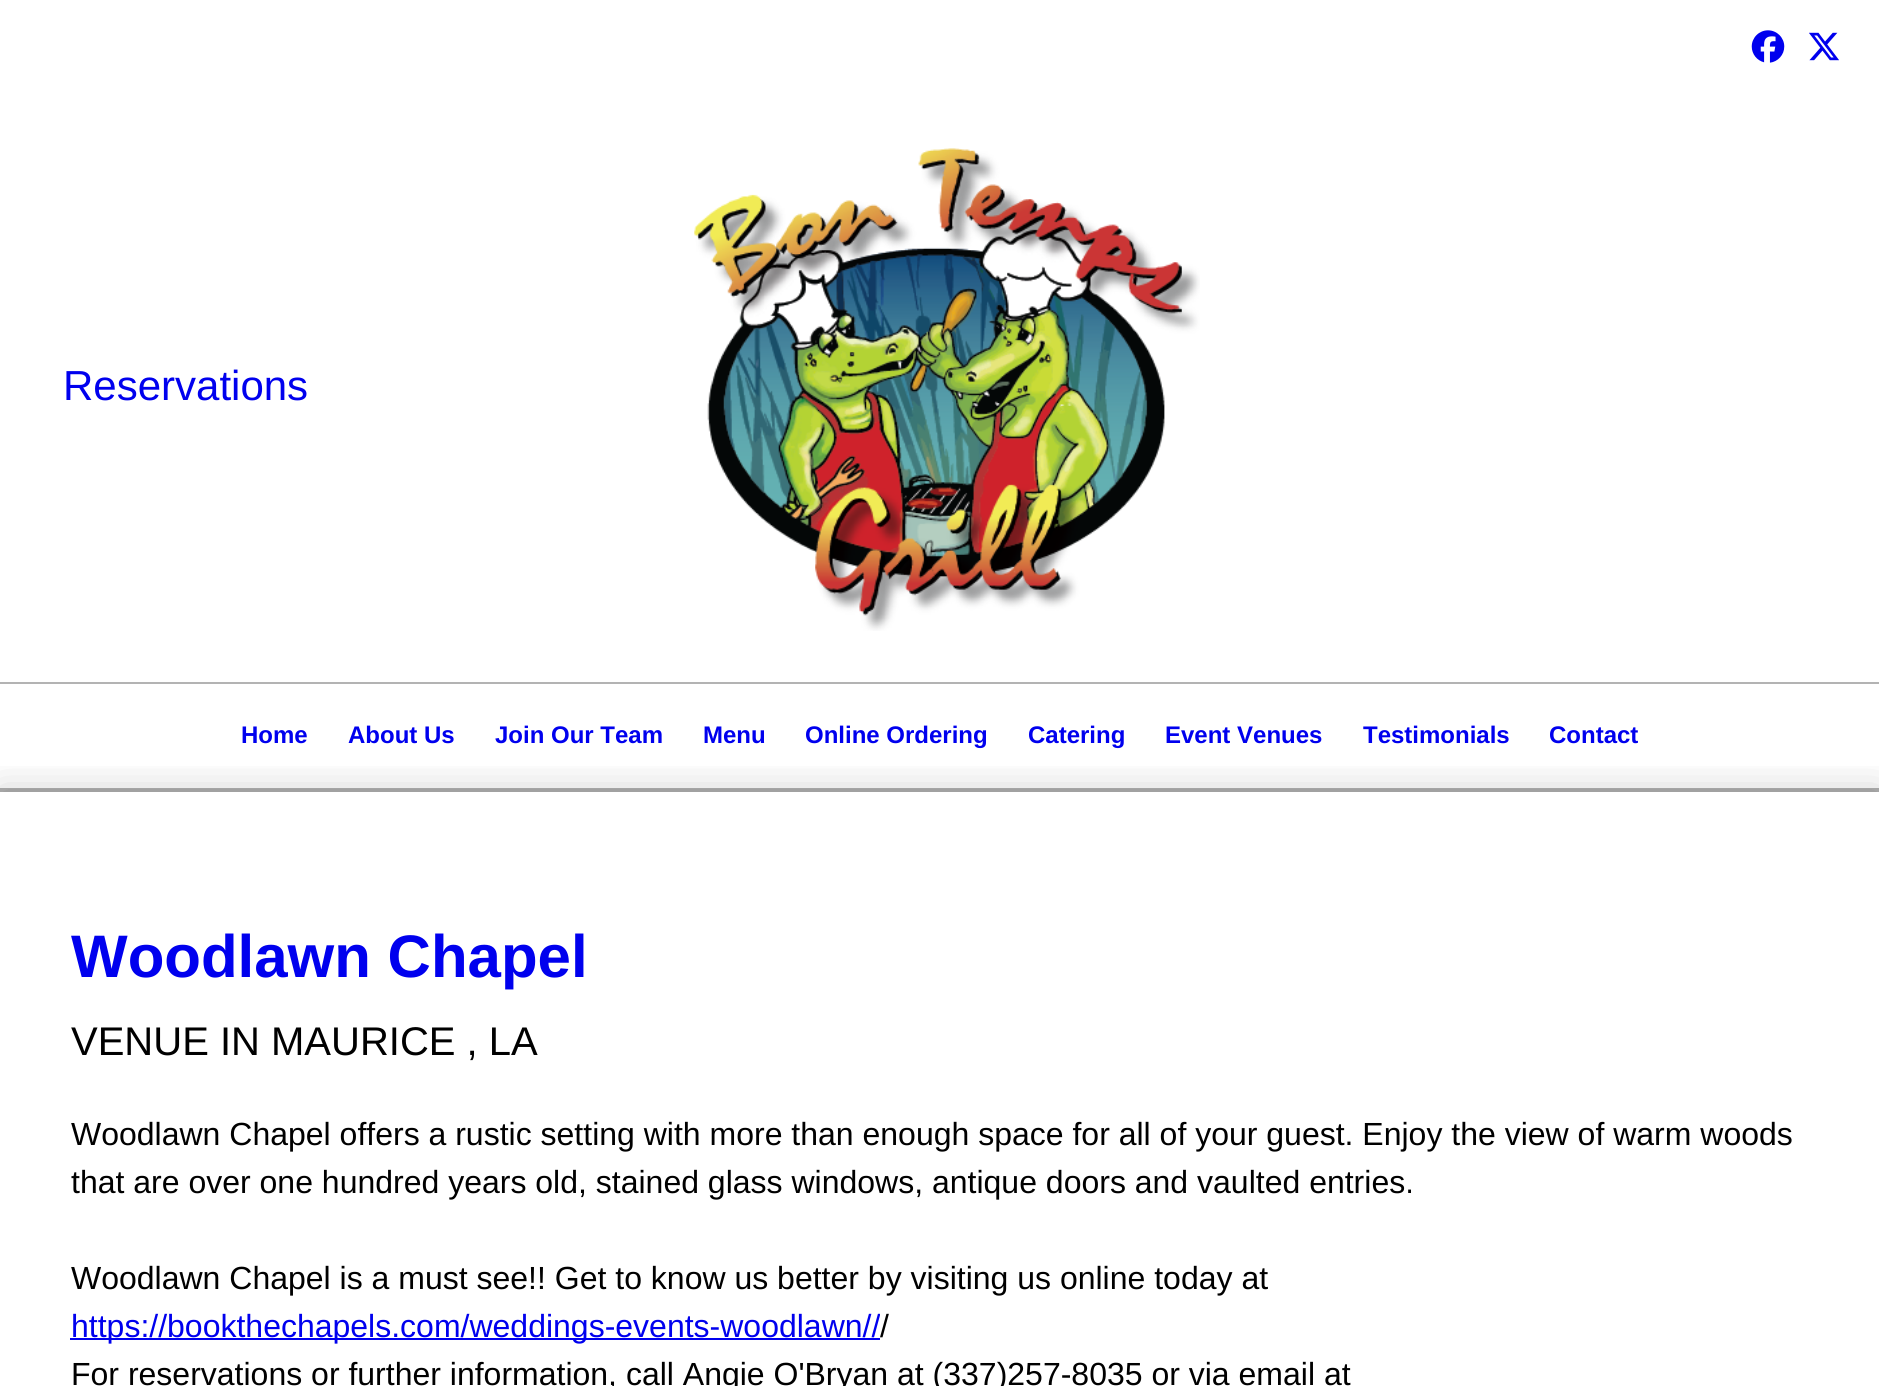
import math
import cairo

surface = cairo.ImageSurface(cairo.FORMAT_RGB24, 1879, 1386)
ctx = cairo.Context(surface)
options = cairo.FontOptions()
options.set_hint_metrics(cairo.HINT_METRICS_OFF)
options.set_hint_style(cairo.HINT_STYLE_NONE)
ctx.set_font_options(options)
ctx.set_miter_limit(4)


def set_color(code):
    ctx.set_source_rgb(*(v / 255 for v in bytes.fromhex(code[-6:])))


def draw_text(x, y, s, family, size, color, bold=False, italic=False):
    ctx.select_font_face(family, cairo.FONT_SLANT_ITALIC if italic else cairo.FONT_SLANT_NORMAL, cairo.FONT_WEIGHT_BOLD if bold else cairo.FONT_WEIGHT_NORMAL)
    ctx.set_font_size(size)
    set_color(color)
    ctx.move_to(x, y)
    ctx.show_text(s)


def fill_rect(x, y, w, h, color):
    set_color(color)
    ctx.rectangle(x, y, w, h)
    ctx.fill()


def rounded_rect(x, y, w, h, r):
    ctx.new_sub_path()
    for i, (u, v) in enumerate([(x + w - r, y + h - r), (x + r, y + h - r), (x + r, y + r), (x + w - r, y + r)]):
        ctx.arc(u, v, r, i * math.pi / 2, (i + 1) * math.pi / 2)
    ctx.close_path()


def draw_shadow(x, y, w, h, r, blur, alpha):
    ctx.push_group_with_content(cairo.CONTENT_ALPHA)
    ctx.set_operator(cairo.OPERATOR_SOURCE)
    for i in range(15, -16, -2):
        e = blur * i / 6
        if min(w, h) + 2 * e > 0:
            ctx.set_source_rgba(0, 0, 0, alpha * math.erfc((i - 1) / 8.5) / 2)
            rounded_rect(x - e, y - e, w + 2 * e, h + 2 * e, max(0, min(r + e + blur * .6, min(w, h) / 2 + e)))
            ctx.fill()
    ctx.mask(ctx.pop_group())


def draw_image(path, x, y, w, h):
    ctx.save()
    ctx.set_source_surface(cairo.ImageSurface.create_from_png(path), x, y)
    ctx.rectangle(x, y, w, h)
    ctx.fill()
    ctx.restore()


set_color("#ffffff")
ctx.paint()
draw_image("assets/img1.png", 1751, 30, 34, 33)
draw_image("assets/img2.png", 1809, 32, 30, 29)
draw_text(63, 400, "Reservations", "Liberation Sans", 42, "#0000ee")
draw_image("assets/img3.png", 694, 148, 506, 483)
fill_rect(0, 682, 1879, 2, "#b3b3b3")
ctx.save()
ctx.rectangle(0, 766, 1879, 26)
ctx.clip()
set_color("#000000")
draw_shadow(0, 792, 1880, 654, 0, 20, 0.2)
ctx.restore()
ctx.set_source_rgba(0, 0, 0, 0.3)
ctx.rectangle(0, 788, 1879, 4)
ctx.fill()
draw_text(241, 743, "Home", "Liberation Sans", 24, "#0000ee", bold=True)
draw_text(348, 743, "About Us", "Liberation Sans", 24, "#0000ee", bold=True)
draw_text(495, 743, "Join Our Team", "Liberation Sans", 24, "#0000ee", bold=True)
draw_text(703, 743, "Menu", "Liberation Sans", 24, "#0000ee", bold=True)
draw_text(805, 743, "Online Ordering", "Liberation Sans", 24, "#0000ee", bold=True)
draw_text(1028, 743, "Catering", "Liberation Sans", 24, "#0000ee", bold=True)
draw_text(1165, 743, "Event Venues", "Liberation Sans", 24, "#0000ee", bold=True)
draw_text(1363, 743, "Testimonials", "Liberation Sans", 24, "#0000ee", bold=True)
draw_text(1549, 743, "Contact", "Liberation Sans", 24, "#0000ee", bold=True)
draw_text(71, 977, "Woodlawn Chapel", "Liberation Sans", 60, "#0000ee", bold=True)
draw_text(71, 1055, "VENUE IN MAURICE , LA", "Liberation Sans", 40, "#000000")
draw_text(71, 1145, "Woodlawn Chapel offers a rustic setting with more than enough space for all of your guest. Enjoy the view of warm woods", "Liberation Sans", 32, "#000000")
draw_text(71, 1193, "that are over one hundred years old, stained glass windows, antique doors and vaulted entries.", "Liberation Sans", 32, "#000000")
draw_text(71, 1289, "Woodlawn Chapel is a must see!! Get to know us better by visiting us online today at", "Liberation Sans", 32, "#000000")
fill_rect(70, 1338, 810, 2, "#0000ee")
draw_text(71, 1337, "https://bookthechapels.com/weddings-events-woodlawn//", "Liberation Sans", 32, "#0000ee")
draw_text(880, 1337, "/", "Liberation Sans", 32, "#000000")
draw_text(71, 1385, "For reservations or further information, call Angie O'Bryan at (337)257-8035 or via email at", "Liberation Sans", 32, "#000000")
surface.write_to_png("output.png")
